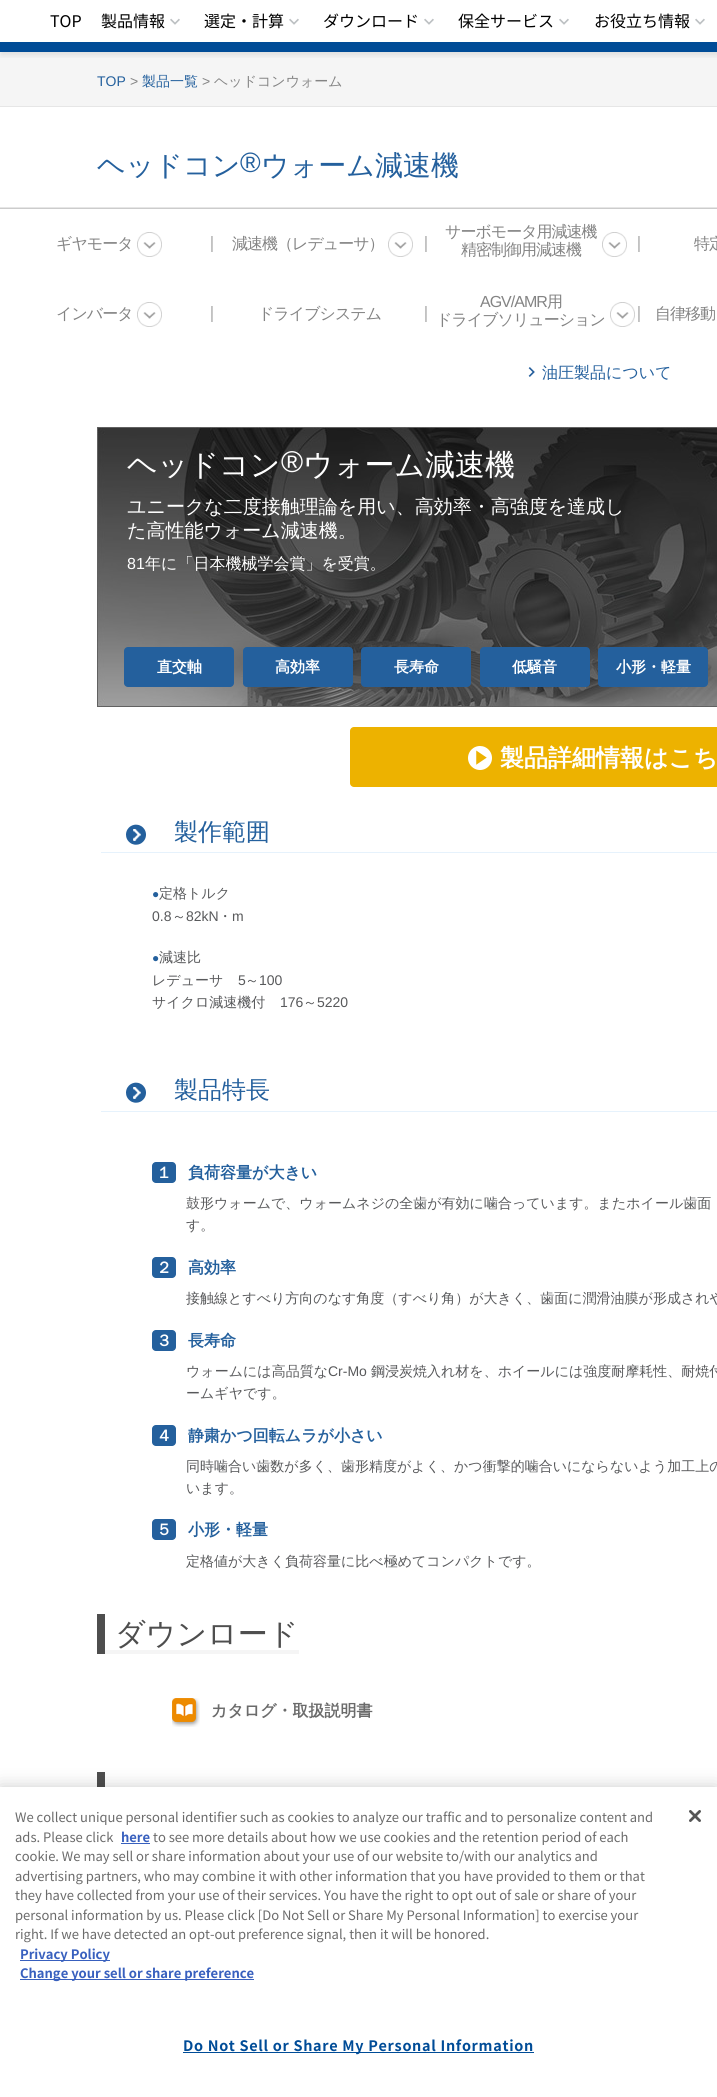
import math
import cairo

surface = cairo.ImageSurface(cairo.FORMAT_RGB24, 717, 2097)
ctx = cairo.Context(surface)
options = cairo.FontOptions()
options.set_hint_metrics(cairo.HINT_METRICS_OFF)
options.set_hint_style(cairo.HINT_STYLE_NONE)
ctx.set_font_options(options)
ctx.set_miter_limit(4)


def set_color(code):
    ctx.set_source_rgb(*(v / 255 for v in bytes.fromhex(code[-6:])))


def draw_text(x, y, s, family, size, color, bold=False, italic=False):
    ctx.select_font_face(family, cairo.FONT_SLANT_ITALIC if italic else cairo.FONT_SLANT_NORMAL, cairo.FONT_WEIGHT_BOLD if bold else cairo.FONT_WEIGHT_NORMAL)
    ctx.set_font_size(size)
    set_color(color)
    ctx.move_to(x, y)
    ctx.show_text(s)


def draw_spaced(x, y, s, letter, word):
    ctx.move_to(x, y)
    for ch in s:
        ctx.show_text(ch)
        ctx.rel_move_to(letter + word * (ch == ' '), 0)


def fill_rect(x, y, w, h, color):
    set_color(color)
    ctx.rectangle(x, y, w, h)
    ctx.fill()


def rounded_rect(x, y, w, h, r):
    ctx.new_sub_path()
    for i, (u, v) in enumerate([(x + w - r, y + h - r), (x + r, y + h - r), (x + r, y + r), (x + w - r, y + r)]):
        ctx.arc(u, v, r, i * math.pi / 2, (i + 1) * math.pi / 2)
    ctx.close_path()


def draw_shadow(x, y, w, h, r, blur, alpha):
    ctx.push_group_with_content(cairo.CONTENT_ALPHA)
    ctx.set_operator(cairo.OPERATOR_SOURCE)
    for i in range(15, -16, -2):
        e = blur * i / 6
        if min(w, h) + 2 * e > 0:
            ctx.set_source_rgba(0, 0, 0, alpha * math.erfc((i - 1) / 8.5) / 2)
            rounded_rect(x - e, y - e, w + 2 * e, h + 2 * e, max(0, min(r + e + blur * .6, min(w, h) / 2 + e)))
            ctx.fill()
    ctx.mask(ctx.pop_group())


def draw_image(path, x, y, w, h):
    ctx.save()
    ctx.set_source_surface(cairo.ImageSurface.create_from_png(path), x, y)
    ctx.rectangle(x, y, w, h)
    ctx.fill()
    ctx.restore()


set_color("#ffffff")
ctx.paint()
fill_rect(0, 52, 717, 54, "#f5f5f5")
ctx.save()
ctx.rectangle(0, 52, 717, 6)
ctx.clip()
set_color("#000000")
draw_shadow(1, -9, 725, 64, 0, 3, 0.1)
ctx.restore()
fill_rect(0, 42, 717, 10, "#004c97")
draw_text(50, 27, "TOP", "Noto Sans JP", 16, "#000000")
draw_text(101, 27, "製品情報", "Noto Sans JP", 16, "#000000")
draw_image("assets/img1.png", 170, 18, 10, 7)
draw_text(204, 27, "選定・計算", "Noto Sans JP", 16, "#000000")
draw_image("assets/img1.png", 289, 18, 10, 7)
draw_text(323, 27, "ダウンロード", "Noto Sans JP", 16, "#000000")
draw_image("assets/img1.png", 424, 18, 10, 7)
draw_text(458, 27, "保全サービス", "Noto Sans JP", 16, "#000000")
draw_image("assets/img1.png", 559, 18, 10, 7)
draw_text(594, 27, "お役立ち情報", "Noto Sans JP", 16, "#000000")
draw_image("assets/img1.png", 695, 18, 10, 7)
fill_rect(0, 106, 717, 1, "#e6e6e6")
draw_text(97, 86, "TOP", "Liberation Sans", 14, "#24609d")
draw_text(130, 86, ">", "Liberation Sans", 14, "#848484")
draw_text(142, 86, "製品一覧", "WenQuanYi Zen Hei Medium", 14, "#24609d")
draw_text(202, 86, ">", "Liberation Sans", 14, "#848484")
draw_text(214, 86, "ヘッドコンウォーム", "WenQuanYi Zen Hei Medium", 14, "#848484")
fill_rect(0, 207, 717, 1, "#e6e6e6")
draw_text(97, 175, "ヘッドコン", "WenQuanYi Zen Hei Medium", 28, "#24609d")
draw_text(240, 172, "®", "Liberation Sans", 28, "#24609d")
draw_text(261, 175, "ウォーム減速機", "WenQuanYi Zen Hei Medium", 28, "#24609d")
fill_rect(0, 208, 717, 1, "#cccccc")
draw_image("assets/img2.png", 211, 236, 2, 16)
ctx.set_font_size(16)
set_color("#848484")
draw_spaced(56, 249, "ギヤモータ", -1, 0)
draw_image("assets/img3.png", 137, 232, 25, 25)
draw_image("assets/img2.png", 425, 236, 2, 16)
draw_spaced(232, 249, "減速機（レデューサ）", -1, 0)
draw_image("assets/img4.png", 388, 232, 25, 25)
draw_image("assets/img2.png", 638, 236, 2, 16)
draw_spaced(445, 237, "サーボモータ用減速機", -1, 0)
draw_spaced(461, 255, "精密制御用減速機", -1, 0)
draw_image("assets/img3.png", 602, 232, 25, 25)
draw_spaced(694, 249, "特定", -1, 0)
draw_image("assets/img2.png", 211, 306, 2, 16)
draw_spaced(56, 319, "インバータ", -1, 0)
draw_image("assets/img3.png", 137, 302, 25, 25)
draw_image("assets/img2.png", 425, 306, 2, 16)
draw_spaced(258, 319, "ドライブシステム", -1, 0)
draw_image("assets/img2.png", 638, 306, 2, 16)
ctx.select_font_face("Liberation Sans")
draw_spaced(480, 307, "AGV/AMR", -1, 0)
ctx.select_font_face("WenQuanYi Zen Hei Medium")
draw_spaced(547, 307, "用", -1, 0)
draw_spaced(436, 325, "ドライブソリューション", -1, 0)
draw_image("assets/img4.png", 610, 302, 25, 25)
draw_spaced(655, 319, "自律移動", -1, 0)
draw_image("assets/img5.png", 528, 367, 7, 10)
draw_text(542, 378, "油圧製品について", "WenQuanYi Zen Hei Medium", 16, "#24609d")
draw_image("assets/img6.png", 97, 427, 620, 280)
draw_text(127, 475, "ヘッドコン", "WenQuanYi Zen Hei Medium", 30, "#ffffff")
draw_text(281, 472, "®", "Liberation Sans", 30, "#ffffff")
draw_text(303, 475, "ウォーム減速機", "WenQuanYi Zen Hei Medium", 30, "#ffffff")
draw_text(127, 513, "ユニークな二度接触理論を用い、高効率・高強度を達成し", "WenQuanYi Zen Hei Medium", 19, "#ffffff")
draw_text(127, 537, "た高性能ウォーム減速機。", "WenQuanYi Zen Hei Medium", 19, "#ffffff")
draw_text(127, 569, "81", "Liberation Sans", 16, "#ffffff")
draw_text(145, 569, "年に「日本機械学会賞」を受賞。", "WenQuanYi Zen Hei Medium", 16, "#ffffff")
set_color("#24609d")
rounded_rect(124, 647, 110, 40, 4)
ctx.fill()
draw_text(157, 672, "直交軸", "WenQuanYi Zen Hei", 15, "#ffffff", bold=True)
set_color("#24609d")
rounded_rect(243, 647, 110, 40, 4)
ctx.fill()
draw_text(275, 672, "高効率", "WenQuanYi Zen Hei", 15, "#ffffff", bold=True)
set_color("#24609d")
rounded_rect(361, 647, 110, 40, 4)
ctx.fill()
draw_text(394, 672, "長寿命", "WenQuanYi Zen Hei", 15, "#ffffff", bold=True)
set_color("#24609d")
rounded_rect(480, 647, 110, 40, 4)
ctx.fill()
draw_text(512, 672, "低騒音", "WenQuanYi Zen Hei", 15, "#ffffff", bold=True)
set_color("#24609d")
rounded_rect(598, 647, 110, 40, 4)
ctx.fill()
draw_text(616, 672, "小形・軽量", "WenQuanYi Zen Hei", 15, "#ffffff", bold=True)
set_color("#edb200")
rounded_rect(350, 727, 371, 60, 4)
ctx.fill()
draw_image("assets/img7.png", 468, 746, 24, 24)
draw_text(500, 766, "製品詳細情報はこち", "WenQuanYi Zen Hei", 24, "#ffffff", bold=True)
fill_rect(101, 852, 616, 1, "#e6f2fc")
draw_image("assets/img8.png", 126, 824, 20, 21)
draw_text(174, 840, "製作範囲", "WenQuanYi Zen Hei Medium", 24, "#24609d")
draw_text(152, 898, "●", "Liberation Sans", 12, "#24609d")
draw_text(159, 898, "定格トルク", "WenQuanYi Zen Hei Medium", 14, "#58595b")
draw_text(152, 921, "0.8", "Liberation Sans", 14, "#58595b")
draw_text(172, 921, "～", "WenQuanYi Zen Hei Medium", 14, "#58595b")
draw_text(186, 921, "82kN", "Liberation Sans", 14, "#58595b")
draw_text(218, 921, "・", "WenQuanYi Zen Hei Medium", 14, "#58595b")
draw_text(232, 921, "m", "Liberation Sans", 14, "#58595b")
draw_text(152, 962, "●", "Liberation Sans", 12, "#24609d")
draw_text(159, 962, "減速比", "WenQuanYi Zen Hei Medium", 14, "#58595b")
draw_text(152, 985, "レデューサ", "WenQuanYi Zen Hei Medium", 14, "#58595b")
draw_text(238, 985, "5", "Liberation Sans", 14, "#58595b")
draw_text(245, 985, "～", "WenQuanYi Zen Hei Medium", 14, "#58595b")
draw_text(259, 985, "100", "Liberation Sans", 14, "#58595b")
draw_text(152, 1007, "サイクロ減速機付", "WenQuanYi Zen Hei Medium", 14, "#58595b")
draw_text(280, 1007, "176", "Liberation Sans", 14, "#58595b")
draw_text(303, 1007, "～", "WenQuanYi Zen Hei Medium", 14, "#58595b")
draw_text(317, 1007, "5220", "Liberation Sans", 14, "#58595b")
fill_rect(101, 1111, 616, 1, "#e6f2fc")
draw_image("assets/img8.png", 126, 1082, 20, 21)
draw_text(174, 1098, "製品特長", "WenQuanYi Zen Hei Medium", 24, "#24609d")
rounded_rect(152, 1162, 24, 21, 4)
ctx.fill()
draw_text(156, 1178, "１", "WenQuanYi Zen Hei", 16, "#ffffff", bold=True)
draw_text(188, 1178, "負荷容量が大きい", "WenQuanYi Zen Hei", 16, "#24609d", bold=True)
draw_text(186, 1208, "鼓形ウォームで、ウォームネジの全歯が有効に噛合っています。またホイール歯面", "WenQuanYi Zen Hei Medium", 14, "#58595b")
draw_text(186, 1230, "す。", "WenQuanYi Zen Hei Medium", 14, "#58595b")
set_color("#24609d")
rounded_rect(152, 1257, 24, 21, 4)
ctx.fill()
draw_text(156, 1273, "２", "WenQuanYi Zen Hei", 16, "#ffffff", bold=True)
draw_text(188, 1273, "高効率", "WenQuanYi Zen Hei", 16, "#24609d", bold=True)
draw_text(186, 1303, "接触線とすべり方向のなす角度（すべり角）が大きく、歯面に潤滑油膜が形成されや", "WenQuanYi Zen Hei Medium", 14, "#58595b")
set_color("#24609d")
rounded_rect(152, 1330, 24, 21, 4)
ctx.fill()
draw_text(156, 1346, "３", "WenQuanYi Zen Hei", 16, "#ffffff", bold=True)
draw_text(188, 1346, "長寿命", "WenQuanYi Zen Hei", 16, "#24609d", bold=True)
draw_text(186, 1376, "ウォームには高品質な", "WenQuanYi Zen Hei Medium", 14, "#58595b")
draw_text(328, 1376, "Cr-Mo", "Liberation Sans", 14, "#58595b")
draw_text(371, 1376, "鋼浸炭焼入れ材を、ホイールには強度耐摩耗性、耐焼付", "WenQuanYi Zen Hei Medium", 14, "#58595b")
draw_text(186, 1398, "ームギヤです。", "WenQuanYi Zen Hei Medium", 14, "#58595b")
set_color("#24609d")
rounded_rect(152, 1425, 24, 21, 4)
ctx.fill()
draw_text(156, 1441, "４", "WenQuanYi Zen Hei", 16, "#ffffff", bold=True)
draw_text(188, 1441, "静粛かつ回転ムラが小さい", "WenQuanYi Zen Hei", 16, "#24609d", bold=True)
draw_text(186, 1471, "同時噛合い歯数が多く、歯形精度がよく、かつ衝撃的噛合いにならないよう加工上の", "WenQuanYi Zen Hei Medium", 14, "#58595b")
draw_text(186, 1493, "います。", "WenQuanYi Zen Hei Medium", 14, "#58595b")
set_color("#24609d")
rounded_rect(152, 1519, 24, 21, 4)
ctx.fill()
draw_text(156, 1535, "５", "WenQuanYi Zen Hei", 16, "#ffffff", bold=True)
draw_text(188, 1535, "小形・軽量", "WenQuanYi Zen Hei", 16, "#24609d", bold=True)
draw_text(186, 1566, "定格値が大きく負荷容量に比べ極めてコンパクトです。", "WenQuanYi Zen Hei Medium", 14, "#58595b")
fill_rect(97, 1614, 8, 40, "#4e4e4e")
draw_text(115, 1644, "ダウンロード", "WenQuanYi Zen Hei Medium", 30, "#4e4e4e")
fill_rect(105, 1650, 194, 4, "#f5f5f5")
draw_image("assets/img9.png", 172, 1698, 28, 29)
draw_text(211, 1716, "カタログ・取扱説明書", "WenQuanYi Zen Hei", 16, "#6b6b6b", bold=True)
fill_rect(97, 1772, 8, 15, "#4e4e4e")
set_color("#000000")
draw_shadow(0, 1787, 717, 310, 0, 9, 0.2)
fill_rect(0, 1787, 717, 310, "#ffffff")
draw_text(15, 1822, "We collect unique personal identifier such as cookies to analyze our traffic and to personalize content and", "Noto Sans JP", 13, "#6b6b6b")
draw_text(15, 1842, "ads. Please click", "Noto Sans JP", 13, "#6b6b6b")
draw_text(121, 1842, "here", "Noto Sans JP", 13, "#3860be", bold=True)
fill_rect(121, 1843, 29, 1, "#3860be")
draw_text(153, 1842, "to see more details about how we use cookies and the retention period of each", "Noto Sans JP", 13, "#6b6b6b")
draw_text(15, 1861, "cookie. We may sell or share information about your use of our website to/with our analytics and", "Noto Sans JP", 13, "#6b6b6b")
draw_text(15, 1881, "advertising partners, who may combine it with other information that you have provided to them or that", "Noto Sans JP", 13, "#6b6b6b")
draw_text(15, 1900, "they have collected from your use of their services. You have the right to opt out of sale or share of your", "Noto Sans JP", 13, "#6b6b6b")
draw_text(15, 1920, "personal information by us. Please click [Do Not Sell or Share My Personal Information] to exercise your", "Noto Sans JP", 13, "#6b6b6b")
draw_text(15, 1939, "right. If we have detected an opt-out preference signal, then it will be honored.", "Noto Sans JP", 13, "#6b6b6b")
fill_rect(20, 1960, 90, 1, "#3860be")
draw_text(20, 1959, "Privacy Policy", "Noto Sans JP", 13, "#3860be", bold=True)
fill_rect(20, 1979, 234, 1, "#3860be")
draw_text(20, 1978, "Change your sell or share preference", "Noto Sans JP", 13, "#3860be", bold=True)
fill_rect(183, 2052, 351, 1, "#004c97")
ctx.set_font_size(14.4)
draw_spaced(183, 2051, "Do Not Sell or Share My Personal Information", 0.7, 0)
draw_image("assets/img10.png", 689, 1810, 12, 12)
surface.write_to_png("output.png")
